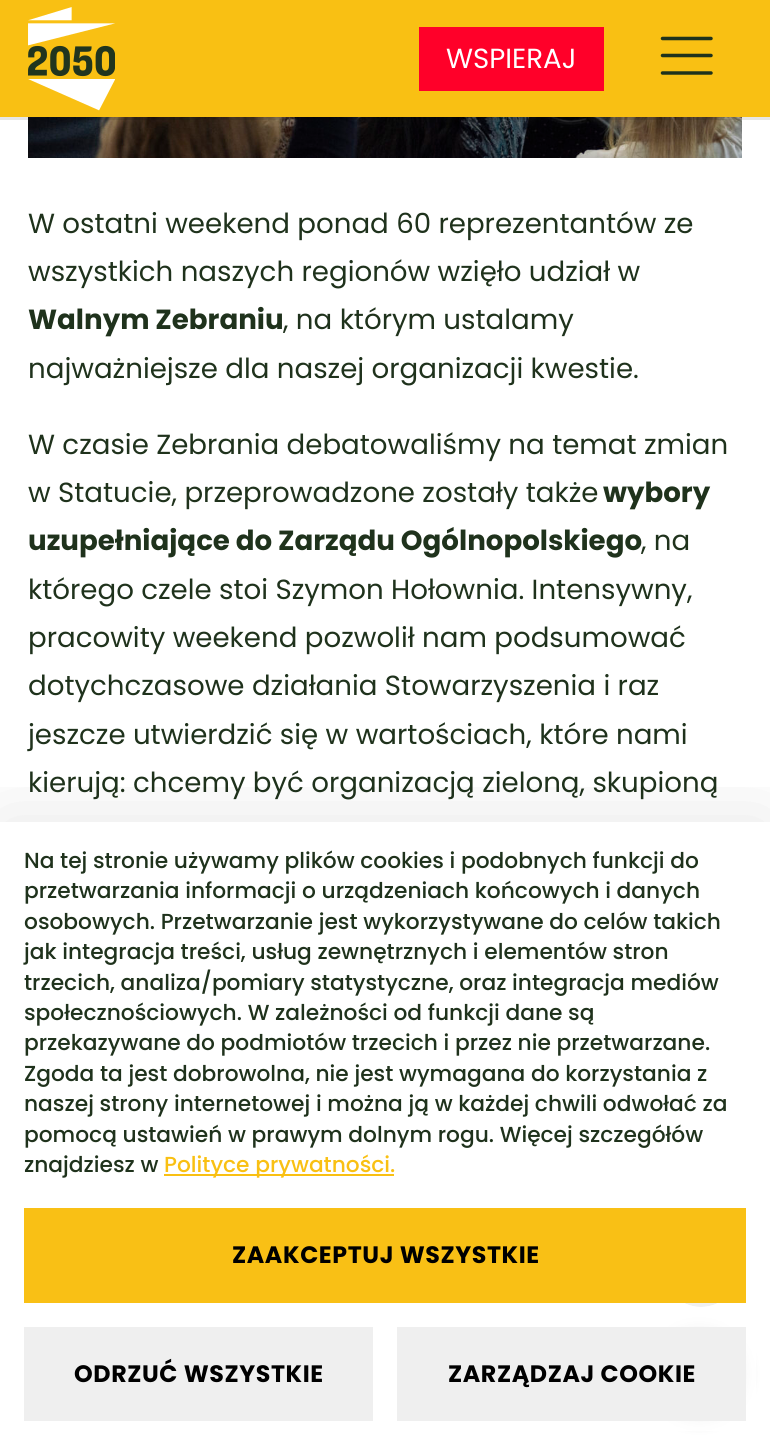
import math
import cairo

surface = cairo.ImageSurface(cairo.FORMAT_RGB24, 770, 1445)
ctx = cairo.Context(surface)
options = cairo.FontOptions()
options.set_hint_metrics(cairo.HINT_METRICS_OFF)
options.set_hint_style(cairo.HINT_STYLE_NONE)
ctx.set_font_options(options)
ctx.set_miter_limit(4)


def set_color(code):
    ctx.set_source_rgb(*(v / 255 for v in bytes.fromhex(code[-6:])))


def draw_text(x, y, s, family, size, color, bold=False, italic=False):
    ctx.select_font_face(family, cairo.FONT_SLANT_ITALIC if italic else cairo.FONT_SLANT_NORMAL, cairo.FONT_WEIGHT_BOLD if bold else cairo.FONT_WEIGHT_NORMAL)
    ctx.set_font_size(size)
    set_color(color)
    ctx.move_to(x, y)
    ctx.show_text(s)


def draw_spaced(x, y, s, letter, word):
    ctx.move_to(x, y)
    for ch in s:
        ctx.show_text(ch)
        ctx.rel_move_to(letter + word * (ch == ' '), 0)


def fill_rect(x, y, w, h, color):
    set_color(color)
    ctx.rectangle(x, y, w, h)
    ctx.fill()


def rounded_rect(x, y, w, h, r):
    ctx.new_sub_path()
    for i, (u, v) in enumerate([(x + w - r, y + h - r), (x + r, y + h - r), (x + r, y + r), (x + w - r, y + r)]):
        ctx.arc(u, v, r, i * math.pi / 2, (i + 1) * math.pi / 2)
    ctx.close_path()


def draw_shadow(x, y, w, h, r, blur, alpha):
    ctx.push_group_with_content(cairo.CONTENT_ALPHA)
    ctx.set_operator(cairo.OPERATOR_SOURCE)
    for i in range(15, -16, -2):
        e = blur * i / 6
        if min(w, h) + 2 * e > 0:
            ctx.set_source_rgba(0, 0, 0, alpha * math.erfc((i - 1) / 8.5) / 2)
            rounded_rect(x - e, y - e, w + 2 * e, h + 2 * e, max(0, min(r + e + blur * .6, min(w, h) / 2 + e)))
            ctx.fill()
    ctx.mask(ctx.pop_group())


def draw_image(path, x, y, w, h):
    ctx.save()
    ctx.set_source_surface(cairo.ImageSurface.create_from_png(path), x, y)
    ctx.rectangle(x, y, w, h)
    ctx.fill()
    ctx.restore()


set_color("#ffffff")
ctx.paint()
draw_image("assets/img2.png", 28, 117, 714, 41)
ctx.rectangle(-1, -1, 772, 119)
ctx.set_source_rgba(0, 0, 0, 0.1)
ctx.set_line_width(4)
ctx.stroke()
fill_rect(0, 0, 770, 117, "#f9c013")
draw_image("assets/img1.png", 28, 7, 87, 104)
fill_rect(419, 27, 185, 64, "#ff0029")
draw_text(446, 68, "WSPIERAJ", "Poppins", 27.65, "#ffffff")
ctx.new_path()
ctx.move_to(662.5, 38.5)
ctx.line_to(711, 38.5)
ctx.move_to(662.5, 55.5)
ctx.line_to(711, 55.5)
ctx.move_to(662.5, 73)
ctx.line_to(711, 73)
set_color("#1f321c")
ctx.set_line_width(3.5)
ctx.set_line_cap(cairo.LINE_CAP_ROUND)
ctx.set_line_join(cairo.LINE_JOIN_ROUND)
ctx.stroke()
draw_text(28, 233, "W ostatni weekend ponad 60 reprezentantów ze", "Poppins", 27.65, "#1f321c")
draw_text(28, 281, "wszystkich naszych regionów wzięło udział w", "Poppins", 27.65, "#1f321c")
draw_text(28, 329, "Walnym Zebraniu", "Poppins", 27.65, "#1f321c", bold=True)
draw_text(283, 329, ", na którym ustalamy", "Poppins", 27.65, "#1f321c")
draw_text(28, 378, "najważniejsze dla naszej organizacji kwestie.", "Poppins", 27.65, "#1f321c")
draw_text(28, 454, "W czasie Zebrania debatowaliśmy na temat zmian", "Poppins", 27.65, "#1f321c")
draw_text(28, 502, "w Statucie, przeprowadzone zostały także", "Poppins", 27.65, "#1f321c")
draw_text(603, 502, "wybory", "Poppins", 27.65, "#1f321c", bold=True)
draw_text(28, 550, "uzupełniające do Zarządu Ogólnopolskiego", "Poppins", 27.65, "#1f321c", bold=True)
draw_text(641, 550, ", na", "Poppins", 27.65, "#1f321c")
draw_text(28, 599, "którego czele stoi Szymon Hołownia. Intensywny,", "Poppins", 27.65, "#1f321c")
draw_text(28, 647, "pracowity weekend pozwolił nam podsumować", "Poppins", 27.65, "#1f321c")
draw_text(28, 695, "dotychczasowe działania Stowarzyszenia i raz", "Poppins", 27.65, "#1f321c")
draw_text(28, 744, "jeszcze utwierdzić się w wartościach, które nami", "Poppins", 27.65, "#1f321c")
draw_text(28, 792, "kierują: chcemy być organizacją zieloną, skupioną", "Poppins", 27.65, "#1f321c")
draw_image("assets/img3.png", 685, 1303, 32, 4)
ctx.save()
ctx.rectangle(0, 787, 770, 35)
ctx.clip()
set_color("#000000")
draw_shadow(0, 822, 770, 623, 0, 41.5, 0.1)
ctx.restore()
set_color("#000000")
draw_shadow(652, 1327, 94, 94, 47, 6.5, 0.25)
ctx.set_source_rgba(1, 1, 1, 0.85)
ctx.rectangle(642, 1303, 114, 128)
ctx.fill()
draw_text(24, 868, "Na tej stronie używamy plików cookies i podobnych funkcji do", "Poppins Medium", 21.75, "#1f321c")
draw_text(24, 898, "przetwarzania informacji o urządzeniach końcowych i danych", "Poppins Medium", 21.75, "#1f321c")
draw_text(24, 929, "osobowych. Przetwarzanie jest wykorzystywane do celów takich", "Poppins Medium", 21.75, "#1f321c")
draw_text(24, 959, "jak integracja treści, usług zewnętrznych i elementów stron", "Poppins Medium", 21.75, "#1f321c")
draw_text(24, 990, "trzecich, analiza/pomiary statystyczne, oraz integracja mediów", "Poppins Medium", 21.75, "#1f321c")
draw_text(24, 1020, "społecznościowych. W zależności od funkcji dane są", "Poppins Medium", 21.75, "#1f321c")
draw_text(24, 1050, "przekazywane do podmiotów trzecich i przez nie przetwarzane.", "Poppins Medium", 21.75, "#1f321c")
draw_text(24, 1081, "Zgoda ta jest dobrowolna, nie jest wymagana do korzystania z", "Poppins Medium", 21.75, "#1f321c")
draw_text(24, 1111, "naszej strony internetowej i można ją w każdej chwili odwołać za", "Poppins Medium", 21.75, "#1f321c")
draw_text(24, 1142, "pomocą ustawień w prawym dolnym rogu. Więcej szczegółów", "Poppins Medium", 21.75, "#1f321c")
draw_text(24, 1172, "znajdziesz w", "Poppins Medium", 21.75, "#1f321c")
fill_rect(164, 1174, 230, 2, "#f9c013")
draw_text(164, 1172, "Polityce prywatności.", "Poppins Medium", 21.75, "#f9c013")
fill_rect(24, 1208, 722, 95, "#f9c015")
ctx.select_font_face("Poppins", cairo.FONT_SLANT_NORMAL, cairo.FONT_WEIGHT_BOLD)
ctx.set_font_size(23.75)
set_color("#000000")
draw_spaced(232, 1263, "ZAAKCEPTUJ WSZYSTKIE", 0.6, 0)
fill_rect(24, 1327, 349, 94, "#efefef")
set_color("#000000")
draw_spaced(74, 1382, "ODRZUĆ WSZYSTKIE", 0.6, 0)
fill_rect(397, 1327, 349, 94, "#efefef")
set_color("#000000")
draw_spaced(448, 1382, "ZARZĄDZAJ COOKIE", 0.6, 0)
surface.write_to_png("output.png")
